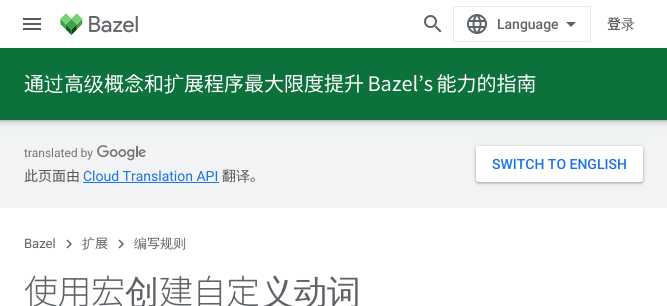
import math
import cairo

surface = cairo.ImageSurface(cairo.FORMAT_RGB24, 667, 306)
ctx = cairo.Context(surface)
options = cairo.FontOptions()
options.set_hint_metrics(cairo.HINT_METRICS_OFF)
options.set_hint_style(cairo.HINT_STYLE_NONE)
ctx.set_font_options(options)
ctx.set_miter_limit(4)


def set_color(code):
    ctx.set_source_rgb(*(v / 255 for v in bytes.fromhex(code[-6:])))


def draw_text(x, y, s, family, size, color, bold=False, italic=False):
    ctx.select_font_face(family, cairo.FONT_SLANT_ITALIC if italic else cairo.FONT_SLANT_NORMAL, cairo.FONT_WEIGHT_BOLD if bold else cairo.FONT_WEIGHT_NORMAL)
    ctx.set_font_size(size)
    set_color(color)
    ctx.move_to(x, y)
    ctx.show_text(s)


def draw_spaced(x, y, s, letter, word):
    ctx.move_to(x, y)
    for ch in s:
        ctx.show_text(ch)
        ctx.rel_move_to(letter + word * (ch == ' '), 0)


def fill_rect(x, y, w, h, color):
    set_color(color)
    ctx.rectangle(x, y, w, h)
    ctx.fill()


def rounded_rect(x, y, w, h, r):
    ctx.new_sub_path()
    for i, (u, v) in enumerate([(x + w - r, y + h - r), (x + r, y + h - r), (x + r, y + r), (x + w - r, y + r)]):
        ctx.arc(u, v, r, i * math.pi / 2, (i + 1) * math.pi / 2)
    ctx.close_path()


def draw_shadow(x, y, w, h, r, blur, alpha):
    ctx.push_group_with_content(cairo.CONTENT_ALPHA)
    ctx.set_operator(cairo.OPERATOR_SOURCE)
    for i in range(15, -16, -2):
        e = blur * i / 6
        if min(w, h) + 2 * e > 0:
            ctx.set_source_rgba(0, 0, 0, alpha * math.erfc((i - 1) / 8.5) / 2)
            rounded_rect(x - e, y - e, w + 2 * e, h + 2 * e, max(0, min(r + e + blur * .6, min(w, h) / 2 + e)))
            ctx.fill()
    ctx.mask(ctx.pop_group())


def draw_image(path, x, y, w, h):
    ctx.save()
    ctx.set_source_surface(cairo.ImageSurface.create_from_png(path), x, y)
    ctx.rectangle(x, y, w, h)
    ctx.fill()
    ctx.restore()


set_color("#ffffff")
ctx.paint()
fill_rect(0, 120, 667, 88, "#f1f3f4")
set_color("#3c4043")
draw_shadow(-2, 48, 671, 76, 0, 3, 0.15)
draw_shadow(0, 49, 667, 72, 0, 1, 0.3)
fill_rect(0, 44, 667, 4, "#ffffff")
draw_image("assets/img1.png", 23, 18, 18, 12)
draw_image("assets/img2.png", 60, 13, 78, 22)
draw_image("assets/img3.png", 424, 15, 18, 18)
rounded_rect(453.5, 6.5, 137, 35, 1.5)
set_color("#e8eaed")
ctx.set_line_width(1)
ctx.stroke()
draw_image("assets/img4.png", 467, 14, 20, 20)
draw_text(497, 29, "Language", "Roboto Medium", 14, "#5f6368")
ctx.new_path()
ctx.move_to(571, 27)
ctx.line_to(566, 22)
ctx.line_to(576, 22)
ctx.close_path()
ctx.fill()
draw_text(607, 29, "登", "Noto Sans JP Medium", 14, "#545555")
draw_text(621, 29, "录", "WenQuanYi Zen Hei Medium", 14, "#545555")
fill_rect(0, 48, 667, 72, "#0c713a")
draw_text(24, 91, "通", "Noto Sans JP", 20, "#ffffff")
draw_text(44, 91, "过", "WenQuanYi Zen Hei Medium", 20, "#ffffff")
draw_text(64, 91, "高", "Noto Sans JP", 20, "#ffffff")
draw_text(84, 91, "级", "WenQuanYi Zen Hei Medium", 20, "#ffffff")
draw_text(104, 91, "概念和", "Noto Sans JP", 20, "#ffffff")
draw_text(164, 91, "扩", "WenQuanYi Zen Hei Medium", 20, "#ffffff")
ctx.select_font_face("Noto Sans JP")
draw_spaced(184, 91, "展程序最大限度提升 Bazel’s 能力的指南", 0, -1)
set_color("#3c4043")
draw_shadow(475, 146, 169, 38, 3, 1.5, 0.15)
draw_shadow(476, 147, 167, 36, 2, 1, 0.3)
set_color("#ffffff")
rounded_rect(476, 146, 167, 36, 2)
ctx.fill()
draw_text(492, 169, "SWITCH TO ENGLISH", "Roboto Medium", 14, "#1a73e8")
draw_image("assets/img5.png", 24, 145, 122, 16)
draw_text(24, 181, "此页面由", "Noto Sans JP", 14, "#545555")
draw_text(83, 181, "Cloud Translation API", "Roboto", 14, "#1a73e8")
fill_rect(83, 182, 136, 1, "#1a73e8")
draw_text(222, 181, "翻", "Noto Sans JP", 14, "#545555")
draw_text(236, 181, "译", "WenQuanYi Zen Hei Medium", 14, "#545555")
draw_text(250, 181, "。", "Noto Sans JP", 14, "#545555")
draw_text(24, 248, "Bazel", "Roboto", 13, "#5f6368")
draw_image("assets/img6.png", 66, 239, 6, 10)
draw_text(82, 248, "扩", "WenQuanYi Zen Hei Medium", 13, "#5f6368")
draw_text(95, 248, "展", "Noto Sans JP", 13, "#5f6368")
draw_image("assets/img6.png", 118, 239, 6, 10)
draw_text(134, 248, "编", "WenQuanYi Zen Hei Medium", 13, "#5f6368")
draw_text(147, 248, "写", "Noto Sans JP", 13, "#5f6368")
draw_text(160, 248, "规则", "WenQuanYi Zen Hei Medium", 13, "#5f6368")
ctx.select_font_face("Noto Sans JP Light")
ctx.set_font_size(34)
draw_spaced(24, 304, "使用宏", -0.5, 0)
ctx.select_font_face("WenQuanYi Zen Hei Medium")
draw_spaced(125, 304, "创", -0.5, 0)
ctx.select_font_face("Noto Sans JP Light")
draw_spaced(159, 304, "建自定", -0.5, 0)
ctx.select_font_face("WenQuanYi Zen Hei Medium")
draw_spaced(260, 304, "义动词", -0.5, 0)
surface.write_to_png("output.png")
